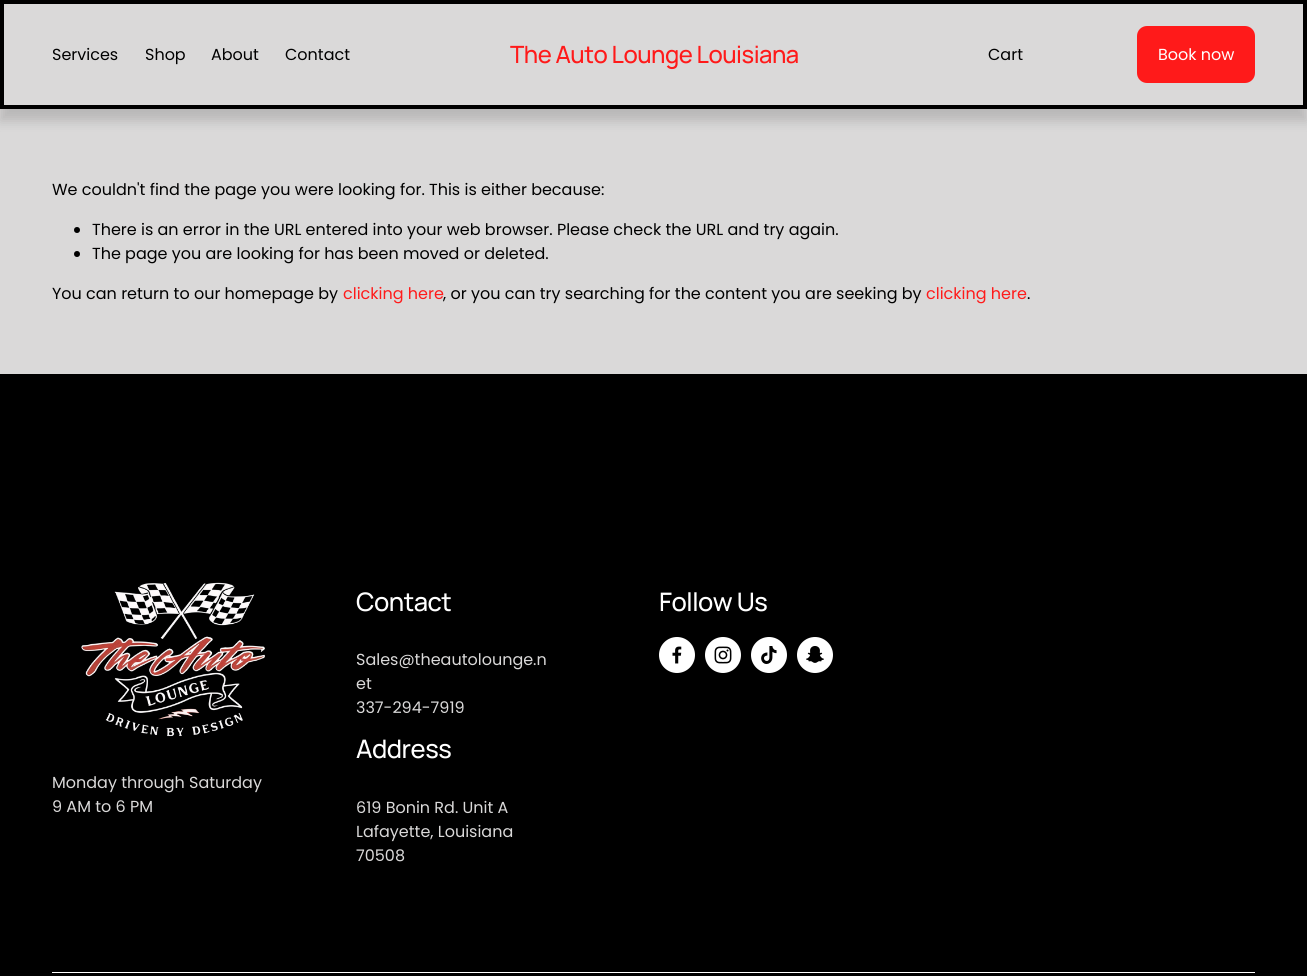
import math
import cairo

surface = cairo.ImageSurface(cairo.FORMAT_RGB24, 1307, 976)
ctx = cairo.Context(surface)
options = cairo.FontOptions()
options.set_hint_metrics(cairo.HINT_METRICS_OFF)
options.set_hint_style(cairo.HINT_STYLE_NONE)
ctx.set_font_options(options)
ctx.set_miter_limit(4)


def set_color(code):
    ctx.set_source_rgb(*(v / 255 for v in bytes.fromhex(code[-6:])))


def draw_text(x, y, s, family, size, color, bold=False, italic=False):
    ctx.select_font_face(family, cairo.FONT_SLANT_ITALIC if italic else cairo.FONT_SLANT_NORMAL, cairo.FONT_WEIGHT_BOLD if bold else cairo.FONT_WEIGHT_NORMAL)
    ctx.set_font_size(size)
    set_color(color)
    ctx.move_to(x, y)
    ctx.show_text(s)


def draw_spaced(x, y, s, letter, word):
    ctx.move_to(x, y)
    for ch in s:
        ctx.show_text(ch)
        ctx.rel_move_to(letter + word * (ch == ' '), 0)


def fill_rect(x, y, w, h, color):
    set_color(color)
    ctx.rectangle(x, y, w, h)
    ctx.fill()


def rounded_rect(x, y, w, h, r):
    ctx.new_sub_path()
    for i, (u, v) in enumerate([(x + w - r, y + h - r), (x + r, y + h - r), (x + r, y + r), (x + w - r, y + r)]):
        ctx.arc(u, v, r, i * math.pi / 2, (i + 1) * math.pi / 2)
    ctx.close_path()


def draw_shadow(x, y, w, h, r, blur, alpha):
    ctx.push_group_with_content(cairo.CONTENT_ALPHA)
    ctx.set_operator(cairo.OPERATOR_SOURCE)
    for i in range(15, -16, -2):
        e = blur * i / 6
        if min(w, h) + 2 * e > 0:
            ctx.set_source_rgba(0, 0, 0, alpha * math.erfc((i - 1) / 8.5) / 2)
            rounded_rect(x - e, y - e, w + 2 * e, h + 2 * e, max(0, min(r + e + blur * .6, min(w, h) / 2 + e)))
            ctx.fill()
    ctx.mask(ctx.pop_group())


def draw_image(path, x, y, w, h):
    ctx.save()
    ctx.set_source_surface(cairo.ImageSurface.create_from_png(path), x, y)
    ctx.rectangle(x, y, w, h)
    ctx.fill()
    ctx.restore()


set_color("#dad9d9")
ctx.paint()
ctx.save()
ctx.rectangle(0, 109, 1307, 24)
ctx.clip()
set_color("#b9b8b8")
draw_shadow(0, 12, 1307, 109, 0, 6, 1)
ctx.restore()
ctx.rectangle(2, 2, 1303, 105)
set_color("#000000")
ctx.set_line_width(4)
ctx.stroke()
draw_text(52, 60, "Services", "Poppins", 16, "#000000")
draw_text(145, 60, "Shop", "Poppins", 16, "#000000")
draw_text(211, 60, "About", "Poppins", 16, "#000000")
draw_text(285, 60, "Contact", "Poppins", 16, "#000000")
ctx.select_font_face("Manrope Medium")
ctx.set_font_size(23.8)
set_color("#ff1a1a")
draw_spaced(510, 63, "The Auto Lounge Louisiana", -0.5, 0)
draw_text(988, 60, "Cart", "Poppins", 16, "#000000")
set_color("#ff1a1a")
rounded_rect(1137, 26, 118, 57, 10)
ctx.fill()
draw_text(1158, 60, "Book now", "Poppins", 16, "#ffffff")
draw_text(52, 195, "We couldn't find the page you were looking for. This is either because:", "Poppins", 16, "#000000")
ctx.new_path()
ctx.arc(77, 230, 3, 0, 2 * math.pi)
ctx.fill()
draw_text(92, 235, "There is an error in the URL entered into your web browser. Please check the URL and try again.", "Poppins", 16, "#000000")
ctx.new_path()
ctx.arc(77, 254, 3, 0, 2 * math.pi)
ctx.fill()
draw_text(92, 259, "The page you are looking for has been moved or deleted.", "Poppins", 16, "#000000")
draw_text(52, 299, "You can return to our homepage by", "Poppins", 16, "#000000")
draw_text(343, 299, "clicking here", "Poppins", 16, "#ff1a1a")
draw_text(443, 299, ", or you can try searching for the content you are seeking by", "Poppins", 16, "#000000")
draw_text(926, 299, "clicking here", "Poppins", 16, "#ff1a1a")
draw_text(1027, 299, ".", "Poppins", 16, "#000000")
fill_rect(0, 374, 1307, 602, "#000000")
draw_image("assets/img1.png", 81, 582, 184, 155)
ctx.select_font_face("Manrope Medium")
ctx.set_font_size(25.5)
set_color("#ffffff")
draw_spaced(356, 611, "Contact", -0.5, 0)
draw_text(356, 665, "Sales@theautolounge.n", "Poppins", 16, "#dad9d9")
draw_text(356, 689, "et", "Poppins", 16, "#dad9d9")
draw_text(356, 713, "337-294-7919", "Poppins", 16, "#dad9d9")
ctx.select_font_face("Manrope Medium")
ctx.set_font_size(25.5)
set_color("#ffffff")
draw_spaced(659, 611, "Follow Us", -0.5, 0)
draw_image("assets/img2.png", 659, 637, 36, 36)
draw_image("assets/img3.png", 705, 637, 36, 36)
draw_image("assets/img4.png", 751, 637, 36, 36)
draw_image("assets/img5.png", 797, 637, 36, 36)
draw_text(52, 788, "Monday through Saturday", "Poppins", 16, "#dad9d9")
draw_text(52, 812, "9 AM to 6 PM", "Poppins", 16, "#dad9d9")
ctx.select_font_face("Manrope Medium")
ctx.set_font_size(25.5)
set_color("#ffffff")
draw_spaced(356, 758, "Address", -0.5, 0)
draw_text(356, 813, "619 Bonin Rd. Unit A", "Poppins", 16, "#dad9d9")
draw_text(356, 837, "Lafayette, Louisiana", "Poppins", 16, "#dad9d9")
draw_text(356, 861, "70508", "Poppins", 16, "#dad9d9")
fill_rect(52, 972, 1203, 1, "#ffffff")
surface.write_to_png("output.png")
